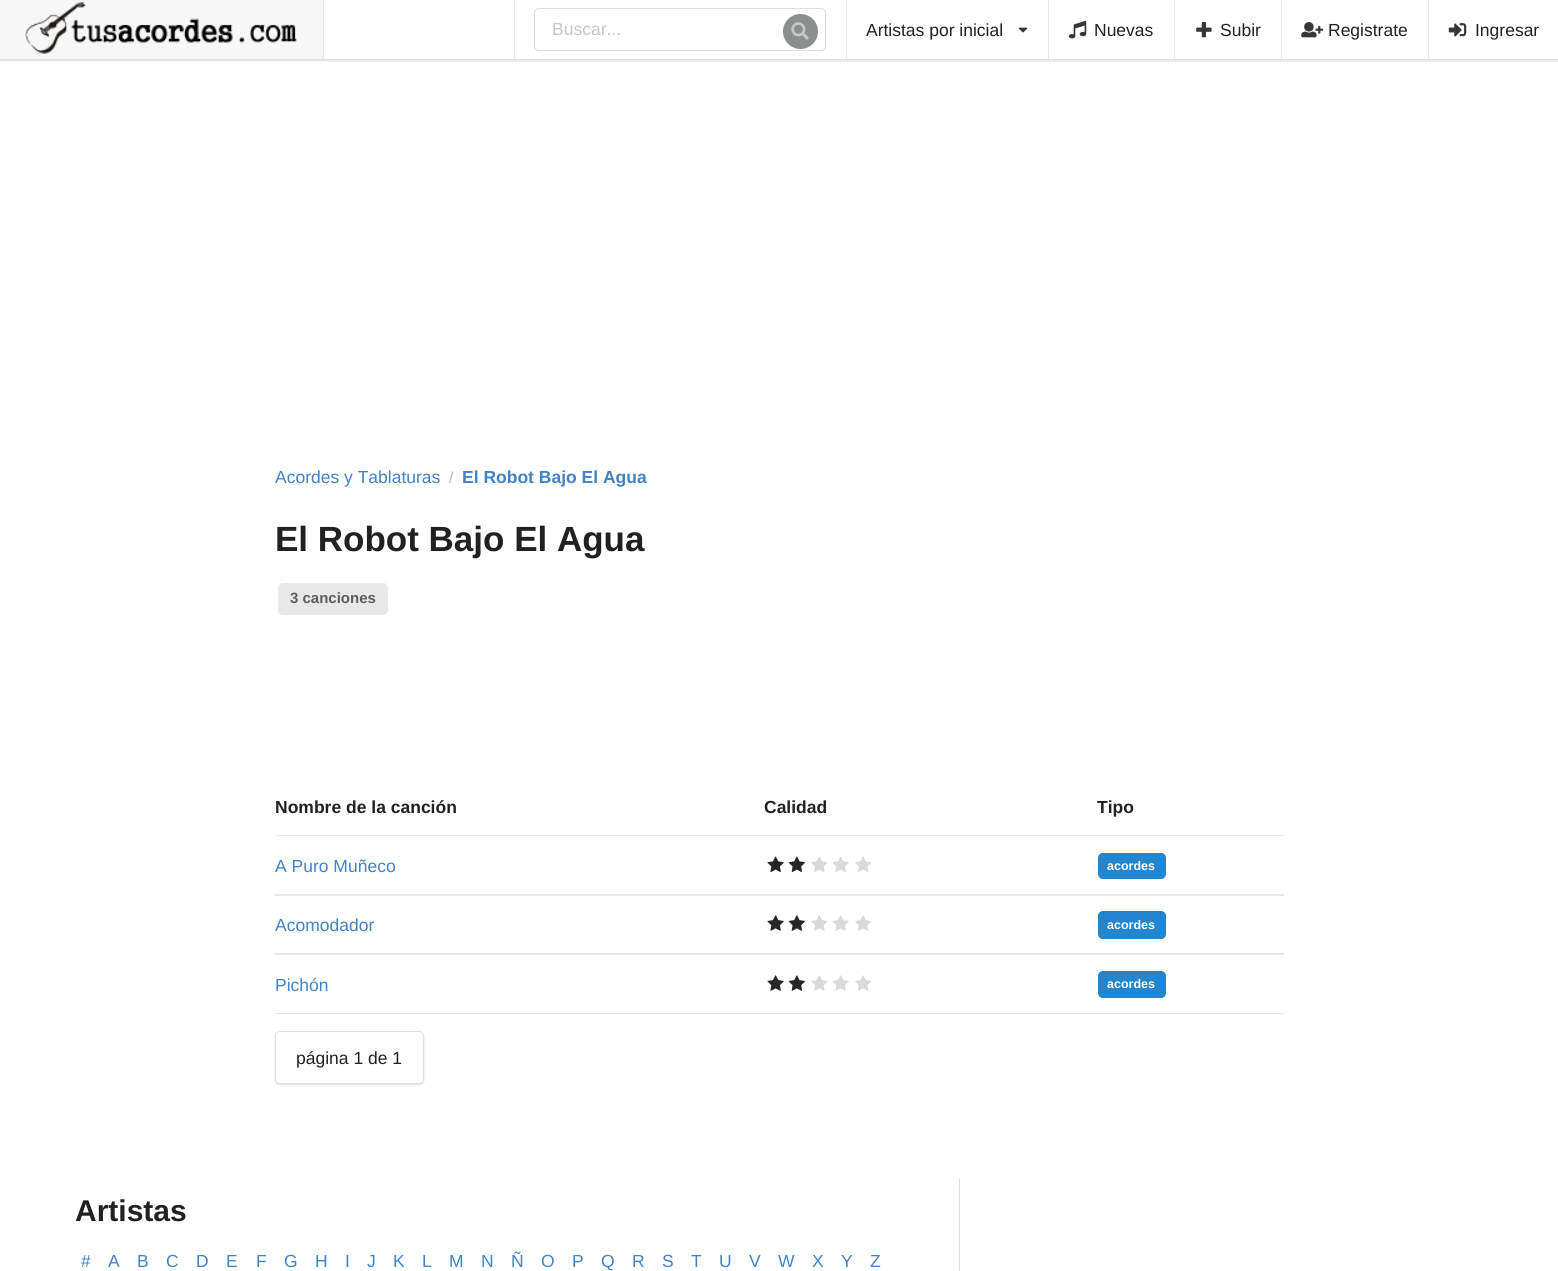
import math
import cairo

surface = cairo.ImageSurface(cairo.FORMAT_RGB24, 1558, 1271)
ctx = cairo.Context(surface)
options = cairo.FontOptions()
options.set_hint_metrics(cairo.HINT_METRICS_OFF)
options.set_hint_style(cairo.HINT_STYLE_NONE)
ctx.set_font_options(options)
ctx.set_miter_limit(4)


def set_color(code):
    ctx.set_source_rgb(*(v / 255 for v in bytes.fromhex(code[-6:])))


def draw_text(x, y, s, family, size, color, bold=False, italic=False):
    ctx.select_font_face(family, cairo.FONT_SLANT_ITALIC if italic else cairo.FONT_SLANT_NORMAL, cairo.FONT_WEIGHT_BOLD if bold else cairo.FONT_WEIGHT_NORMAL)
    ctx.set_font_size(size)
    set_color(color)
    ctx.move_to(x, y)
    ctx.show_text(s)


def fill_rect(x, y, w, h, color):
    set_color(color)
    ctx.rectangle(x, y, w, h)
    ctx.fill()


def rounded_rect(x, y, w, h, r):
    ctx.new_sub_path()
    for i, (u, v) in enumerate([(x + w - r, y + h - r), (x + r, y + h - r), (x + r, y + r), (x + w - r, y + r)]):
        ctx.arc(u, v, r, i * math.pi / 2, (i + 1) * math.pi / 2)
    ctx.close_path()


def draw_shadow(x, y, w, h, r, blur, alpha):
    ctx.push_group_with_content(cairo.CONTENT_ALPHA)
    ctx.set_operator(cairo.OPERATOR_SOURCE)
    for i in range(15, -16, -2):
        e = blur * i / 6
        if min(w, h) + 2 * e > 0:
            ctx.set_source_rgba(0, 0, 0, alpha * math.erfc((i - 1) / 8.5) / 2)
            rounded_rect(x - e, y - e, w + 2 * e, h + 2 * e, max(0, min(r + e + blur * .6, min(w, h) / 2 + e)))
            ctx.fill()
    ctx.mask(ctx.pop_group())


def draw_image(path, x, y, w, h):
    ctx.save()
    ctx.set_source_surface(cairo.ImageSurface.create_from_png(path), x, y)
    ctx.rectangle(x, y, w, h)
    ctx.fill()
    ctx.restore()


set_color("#ffffff")
ctx.paint()
ctx.save()
ctx.rectangle(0, 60, 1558, 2)
ctx.clip()
set_color("#222426")
draw_shadow(0, 1, 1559, 60, 0, 1, 0.15)
ctx.restore()
fill_rect(0, 59, 1558, 1, "#dedede")
fill_rect(0, 0, 323, 59, "#f7f7f7")
draw_image("assets/img1.png", 25, 1, 272, 53)
fill_rect(323, 0, 1, 59, "#e2e2e2")
fill_rect(514, 0, 1, 59, "#e9e9e9")
rounded_rect(534.5, 8.5, 291, 42, 4.5)
set_color("#dedede")
ctx.set_line_width(1)
ctx.stroke()
draw_text(552, 35, "Buscar...", "Liberation Sans", 17.5, "#c7c7c7")
set_color("#8d8e8e")
ctx.new_path()
ctx.arc(800.5, 31.5, 17.5, 0, 2 * math.pi)
ctx.fill()
draw_image("assets/img2.png", 791, 22, 18, 18)
fill_rect(846, 0, 1, 59, "#e9e9e9")
draw_text(866, 36, "Artistas por inicial", "Liberation Sans", 17.5, "#212121")
draw_image("assets/img3.png", 1018, 27, 10, 6)
fill_rect(1048, 0, 1, 59, "#e9e9e9")
draw_image("assets/img4.png", 1068, 21, 19, 18)
draw_text(1094, 36, "Nuevas", "Liberation Sans", 17.5, "#212121")
fill_rect(1174, 0, 1, 59, "#e9e9e9")
draw_image("assets/img5.png", 1196, 22, 16, 16)
draw_text(1220, 36, "Subir", "Liberation Sans", 17.5, "#212121")
fill_rect(1281, 0, 1, 59, "#e9e9e9")
draw_image("assets/img6.png", 1301, 22, 23, 16)
draw_text(1328, 36, "Registrate", "Liberation Sans", 17.5, "#212121")
fill_rect(1428, 0, 1, 59, "#e9e9e9")
draw_image("assets/img7.png", 1448, 23, 19, 14)
draw_text(1475, 36, "Ingresar", "Liberation Sans", 17.5, "#212121")
draw_text(275, 483, "Acordes y Tablaturas", "Liberation Sans", 17.5, "#4183c4")
draw_text(449, 483, "/", "Liberation Sans", 16, "#b8b8b8")
draw_text(462, 483, "El Robot Bajo El Agua", "Liberation Sans", 17.5, "#4183c4", bold=True)
draw_text(275, 551, "El Robot Bajo El Agua", "Liberation Sans", 35, "#212121", bold=True)
set_color("#e8e8e8")
rounded_rect(278, 583, 110, 32, 5)
ctx.fill()
draw_text(290, 603, "3 canciones", "Liberation Sans", 15, "#5d5d5d", bold=True)
fill_rect(275, 835, 1009, 1, "#e9e9e9")
draw_text(275, 813, "Nombre de la canción", "Liberation Sans", 17.5, "#212121", bold=True)
draw_text(764, 813, "Calidad", "Liberation Sans", 17.5, "#212121", bold=True)
draw_text(1097, 813, "Tipo", "Liberation Sans", 17.5, "#212121", bold=True)
fill_rect(275, 894, 1009, 1, "#e6e6e6")
draw_text(275, 872, "A Puro Muñeco", "Liberation Sans", 17.5, "#4183c4")
draw_image("assets/img8.png", 767, 856, 17, 16)
draw_image("assets/img9.png", 788, 856, 17, 16)
draw_image("assets/img10.png", 811, 856, 17, 16)
draw_image("assets/img11.png", 832, 856, 17, 16)
draw_image("assets/img12.png", 855, 856, 16, 16)
set_color("#2185d0")
rounded_rect(1098, 853, 68, 26, 5)
ctx.fill()
draw_text(1107, 870, "acordes", "Liberation Sans", 12.5, "#ffffff", bold=True)
fill_rect(275, 953, 1009, 1, "#e6e6e6")
fill_rect(275, 895, 1009, 1, "#e9e9e9")
draw_text(275, 931, "Acomodador", "Liberation Sans", 17.5, "#4183c4")
draw_image("assets/img13.png", 767, 915, 17, 16)
draw_image("assets/img14.png", 788, 915, 17, 16)
draw_image("assets/img15.png", 811, 915, 17, 16)
draw_image("assets/img16.png", 832, 915, 17, 16)
draw_image("assets/img17.png", 855, 915, 16, 16)
set_color("#2185d0")
rounded_rect(1098, 911, 68, 28, 5)
ctx.fill()
draw_text(1107, 929, "acordes", "Liberation Sans", 12.5, "#ffffff", bold=True)
fill_rect(275, 1013, 1009, 1, "#e6e6e6")
fill_rect(275, 954, 1009, 1, "#e9e9e9")
draw_text(275, 991, "Pichón", "Liberation Sans", 17.5, "#4183c4")
draw_image("assets/img13.png", 767, 975, 17, 16)
draw_image("assets/img14.png", 788, 975, 17, 16)
draw_image("assets/img15.png", 811, 975, 17, 16)
draw_image("assets/img16.png", 832, 975, 17, 16)
draw_image("assets/img17.png", 855, 975, 16, 16)
set_color("#2185d0")
rounded_rect(1098, 971, 68, 27, 5)
ctx.fill()
draw_text(1107, 988, "acordes", "Liberation Sans", 12.5, "#ffffff", bold=True)
set_color("#222426")
draw_shadow(275, 1033, 149, 52, 5, 1, 0.15)
set_color("#ffffff")
rounded_rect(275, 1031, 149, 53, 5)
ctx.fill()
rounded_rect(275.5, 1031.5, 148, 52, 4.5)
ctx.set_source_rgba(0.133, 0.141, 0.149, 0.15)
ctx.stroke()
draw_text(296, 1064, "página 1 de 1", "Liberation Sans", 17.5, "#212121")
draw_text(75, 1221, "Artistas", "Liberation Sans", 30, "#212121", bold=True)
draw_text(81, 1267, "#", "Liberation Sans", 17.5, "#4183c4")
draw_text(108, 1267, "A", "Liberation Sans", 17.5, "#4183c4")
draw_text(137, 1267, "B", "Liberation Sans", 17.5, "#4183c4")
draw_text(166, 1267, "C", "Liberation Sans", 17.5, "#4183c4")
draw_text(196, 1267, "D", "Liberation Sans", 17.5, "#4183c4")
draw_text(226, 1267, "E", "Liberation Sans", 17.5, "#4183c4")
draw_text(256, 1267, "F", "Liberation Sans", 17.5, "#4183c4")
draw_text(284, 1267, "G", "Liberation Sans", 17.5, "#4183c4")
draw_text(315, 1267, "H", "Liberation Sans", 17.5, "#4183c4")
draw_text(345, 1267, "I", "Liberation Sans", 17.5, "#4183c4")
draw_text(367, 1267, "J", "Liberation Sans", 17.5, "#4183c4")
draw_text(393, 1267, "K", "Liberation Sans", 17.5, "#4183c4")
draw_text(422, 1267, "L", "Liberation Sans", 17.5, "#4183c4")
draw_text(449, 1267, "M", "Liberation Sans", 17.5, "#4183c4")
draw_text(481, 1267, "N", "Liberation Sans", 17.5, "#4183c4")
draw_text(511, 1267, "Ñ", "Liberation Sans", 17.5, "#4183c4")
draw_text(541, 1267, "O", "Liberation Sans", 17.5, "#4183c4")
draw_text(572, 1267, "P", "Liberation Sans", 17.5, "#4183c4")
draw_text(601, 1267, "Q", "Liberation Sans", 17.5, "#4183c4")
draw_text(632, 1267, "R", "Liberation Sans", 17.5, "#4183c4")
draw_text(662, 1267, "S", "Liberation Sans", 17.5, "#4183c4")
draw_text(691, 1267, "T", "Liberation Sans", 17.5, "#4183c4")
draw_text(719, 1267, "U", "Liberation Sans", 17.5, "#4183c4")
draw_text(749, 1267, "V", "Liberation Sans", 17.5, "#4183c4")
draw_text(778, 1267, "W", "Liberation Sans", 17.5, "#4183c4")
draw_text(812, 1267, "X", "Liberation Sans", 17.5, "#4183c4")
draw_text(841, 1267, "Y", "Liberation Sans", 17.5, "#4183c4")
draw_text(870, 1267, "Z", "Liberation Sans", 17.5, "#4183c4")
fill_rect(959, 1179, 1, 92, "#dedede")
surface.write_to_png("output.png")
